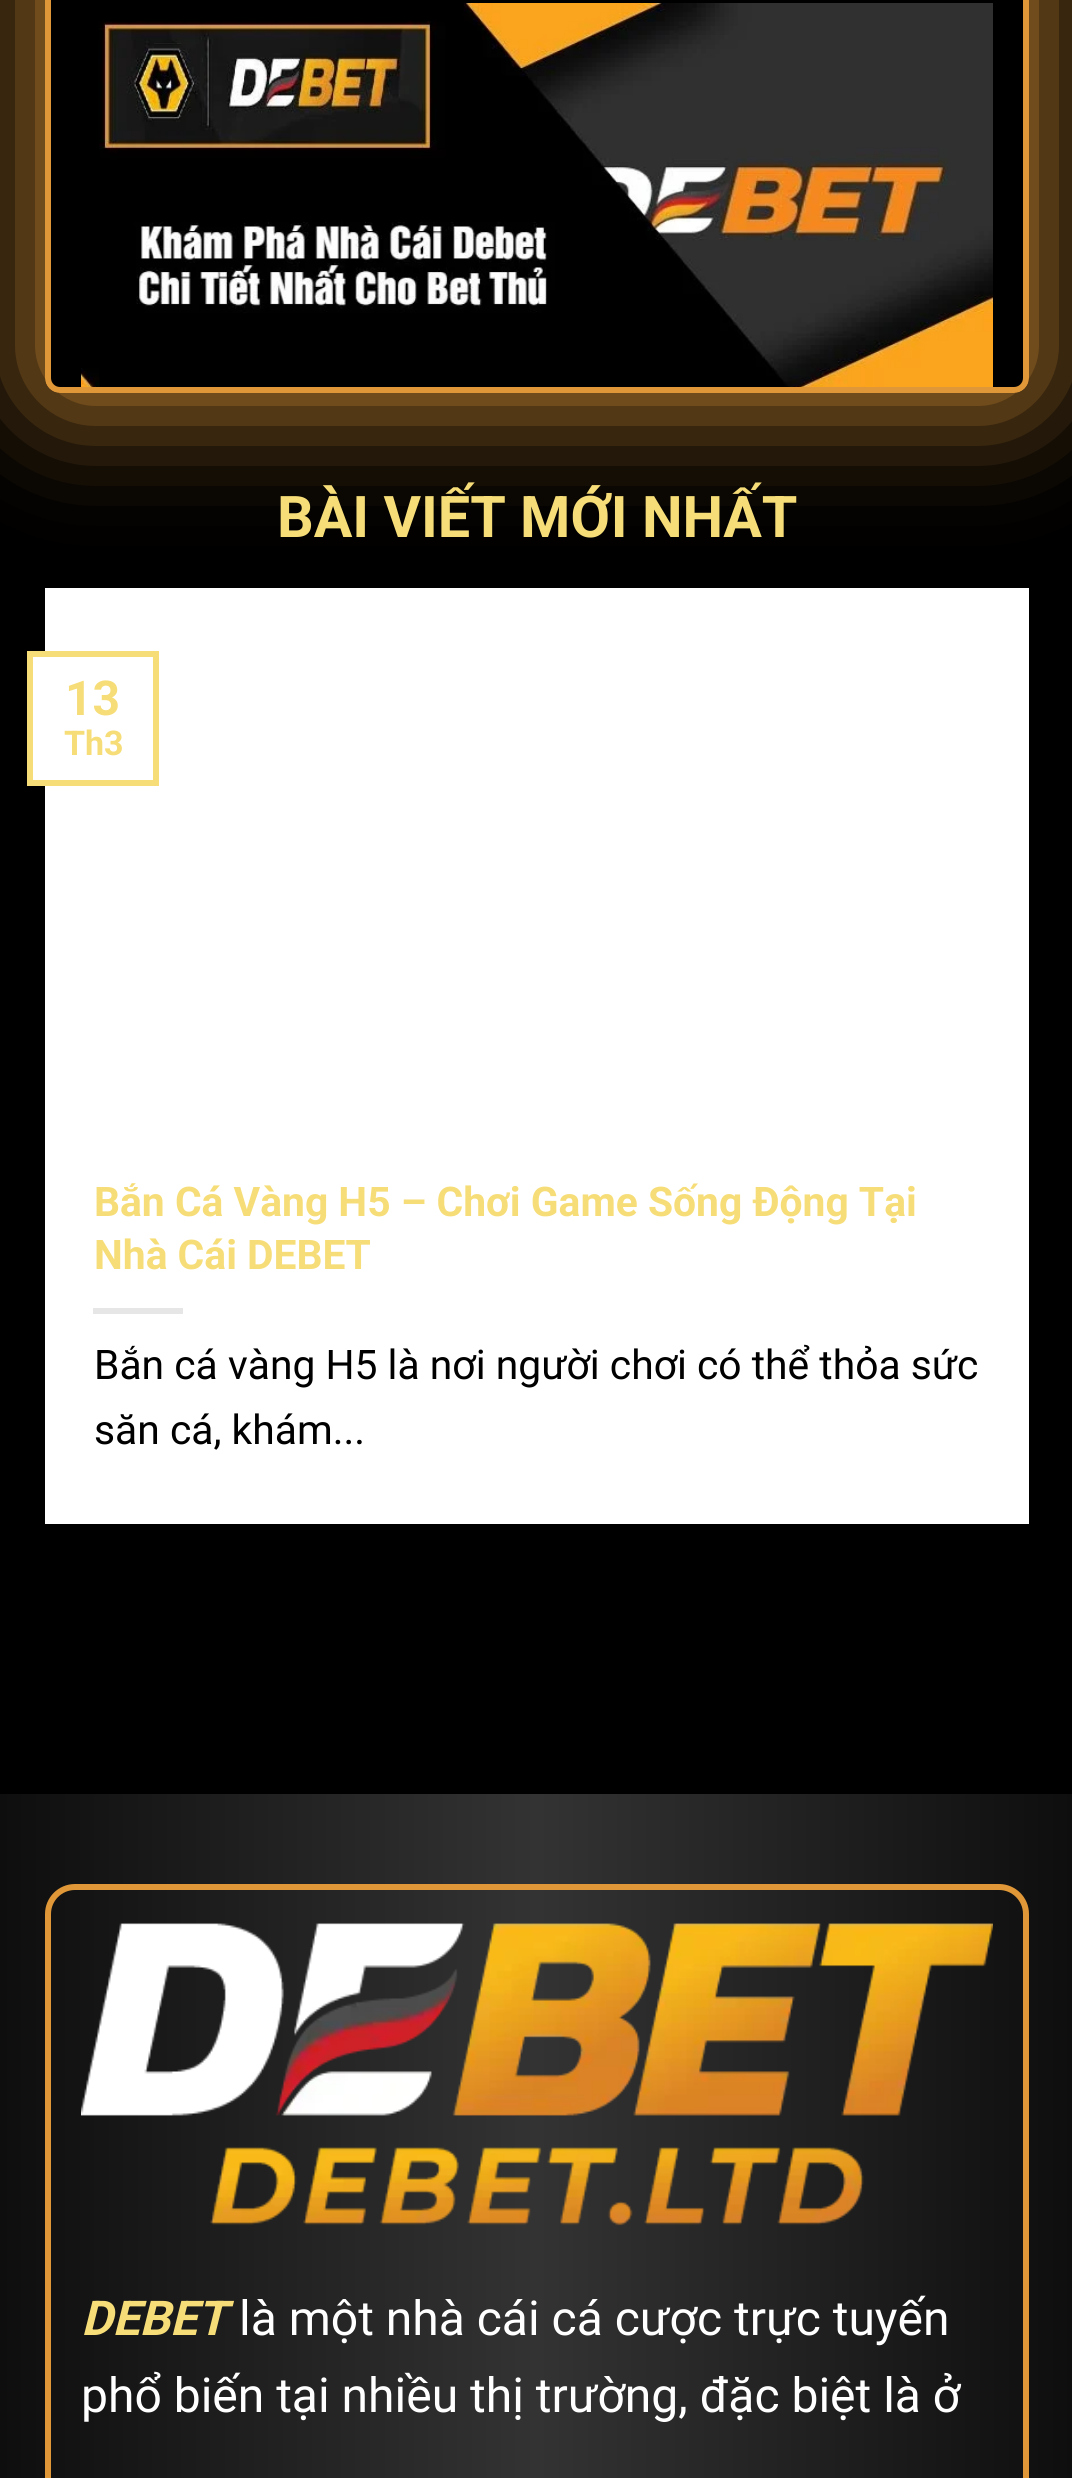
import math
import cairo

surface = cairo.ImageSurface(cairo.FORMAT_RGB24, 1072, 2478)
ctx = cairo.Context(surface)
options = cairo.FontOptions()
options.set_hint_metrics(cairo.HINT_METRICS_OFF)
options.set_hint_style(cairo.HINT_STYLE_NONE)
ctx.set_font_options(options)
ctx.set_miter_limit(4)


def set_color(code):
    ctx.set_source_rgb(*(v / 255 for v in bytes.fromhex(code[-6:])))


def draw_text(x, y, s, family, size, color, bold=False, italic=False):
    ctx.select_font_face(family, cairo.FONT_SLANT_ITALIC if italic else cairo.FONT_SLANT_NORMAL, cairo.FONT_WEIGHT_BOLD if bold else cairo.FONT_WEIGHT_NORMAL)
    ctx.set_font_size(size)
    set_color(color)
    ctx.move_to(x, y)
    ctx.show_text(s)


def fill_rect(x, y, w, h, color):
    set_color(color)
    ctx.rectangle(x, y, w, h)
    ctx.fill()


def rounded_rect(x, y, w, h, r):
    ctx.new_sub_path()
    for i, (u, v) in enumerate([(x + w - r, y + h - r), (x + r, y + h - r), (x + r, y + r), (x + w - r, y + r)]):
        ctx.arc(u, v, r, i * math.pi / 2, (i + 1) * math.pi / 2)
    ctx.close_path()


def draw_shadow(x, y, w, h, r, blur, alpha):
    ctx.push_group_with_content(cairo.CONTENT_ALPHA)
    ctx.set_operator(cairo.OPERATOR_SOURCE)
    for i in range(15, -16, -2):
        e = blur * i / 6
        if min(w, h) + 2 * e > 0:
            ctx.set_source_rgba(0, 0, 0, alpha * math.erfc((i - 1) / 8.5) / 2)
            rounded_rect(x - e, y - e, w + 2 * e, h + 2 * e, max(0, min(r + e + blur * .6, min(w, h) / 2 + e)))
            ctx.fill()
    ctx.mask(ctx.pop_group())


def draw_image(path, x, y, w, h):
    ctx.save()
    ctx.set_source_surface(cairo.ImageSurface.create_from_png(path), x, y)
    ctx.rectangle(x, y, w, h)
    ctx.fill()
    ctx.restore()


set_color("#000000")
ctx.paint()
ctx.save()
ctx.set_fill_rule(cairo.FILL_RULE_EVEN_ODD)
ctx.new_path()
ctx.move_to(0, 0)
ctx.line_to(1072, 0)
ctx.line_to(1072, 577)
ctx.line_to(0, 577)
ctx.close_path()
ctx.move_to(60, -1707)
ctx.line_to(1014, -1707)
ctx.curve_to(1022.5, -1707, 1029, -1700.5, 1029, -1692)
ctx.line_to(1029, 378)
ctx.curve_to(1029, 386.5, 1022.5, 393, 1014, 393)
ctx.line_to(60, 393)
ctx.curve_to(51.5, 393, 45, 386.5, 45, 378)
ctx.line_to(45, -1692)
ctx.curve_to(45, -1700.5, 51.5, -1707, 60, -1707)
ctx.close_path()
ctx.clip()
set_color("#e09738")
draw_shadow(45, -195, 984, 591, 15, 60, 1)
ctx.restore()
rounded_rect(48, -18, 978, 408, 12)
set_color("#e09738")
ctx.set_line_width(6)
ctx.stroke()
draw_image("assets/img1.png", 81, 3, 912, 384)
draw_text(277, 537, "BÀI VIẾT MỚI NHẤT", "Roboto", 57.5, "#f6dd78", bold=True)
fill_rect(45, 588, 984, 936, "#ffffff")
fill_rect(33, 657, 12, 123, "#ffffff")
ctx.rectangle(30, 654, 126, 129)
set_color("#f6dd78")
ctx.stroke()
draw_text(65, 715, "13", "Roboto", 48, "#f6dd78", bold=True)
draw_text(64, 755, "Th3", "Roboto", 34, "#f6dd78", bold=True)
draw_text(94, 1216, "Bắn Cá Vàng H5 – Chơi Game Sống Động Tại", "Roboto", 40.8, "#f6dd78", bold=True)
draw_text(94, 1269, "Nhà Cái DEBET", "Roboto", 40.8, "#f6dd78", bold=True)
fill_rect(93, 1308, 90, 6, "#e6e6e6")
draw_text(94, 1379, "Bắn cá vàng H5 là nơi người chơi có thể thỏa sức", "Roboto", 40.8, "#000000")
draw_text(94, 1444, "săn cá, khám...", "Roboto", 40.8, "#000000")
gradient = cairo.LinearGradient(0, 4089, 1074, 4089)
gradient.add_color_stop_rgba(0, 0.055, 0.055, 0.055, 1)
gradient.add_color_stop_rgba(0.5, 0.2, 0.2, 0.2, 1)
gradient.add_color_stop_rgba(1, 0.055, 0.055, 0.055, 1)
ctx.set_source(gradient)
ctx.rectangle(0, 1794, 1072, 684)
ctx.fill()
rounded_rect(48, 1887, 978, 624, 27)
set_color("#e09738")
ctx.stroke()
draw_image("assets/img2.png", 81, 1923, 912, 303)
draw_text(81, 2335, "DEBET", "Roboto", 48, "#f6dd78", bold=True, italic=True)
draw_text(239, 2335, "là một nhà cái cá cược trực tuyến", "Roboto", 48, "#ffffff")
draw_text(81, 2412, "phổ biến tại nhiều thị trường, đặc biệt là ở", "Roboto", 48, "#ffffff")
surface.write_to_png("output.png")
